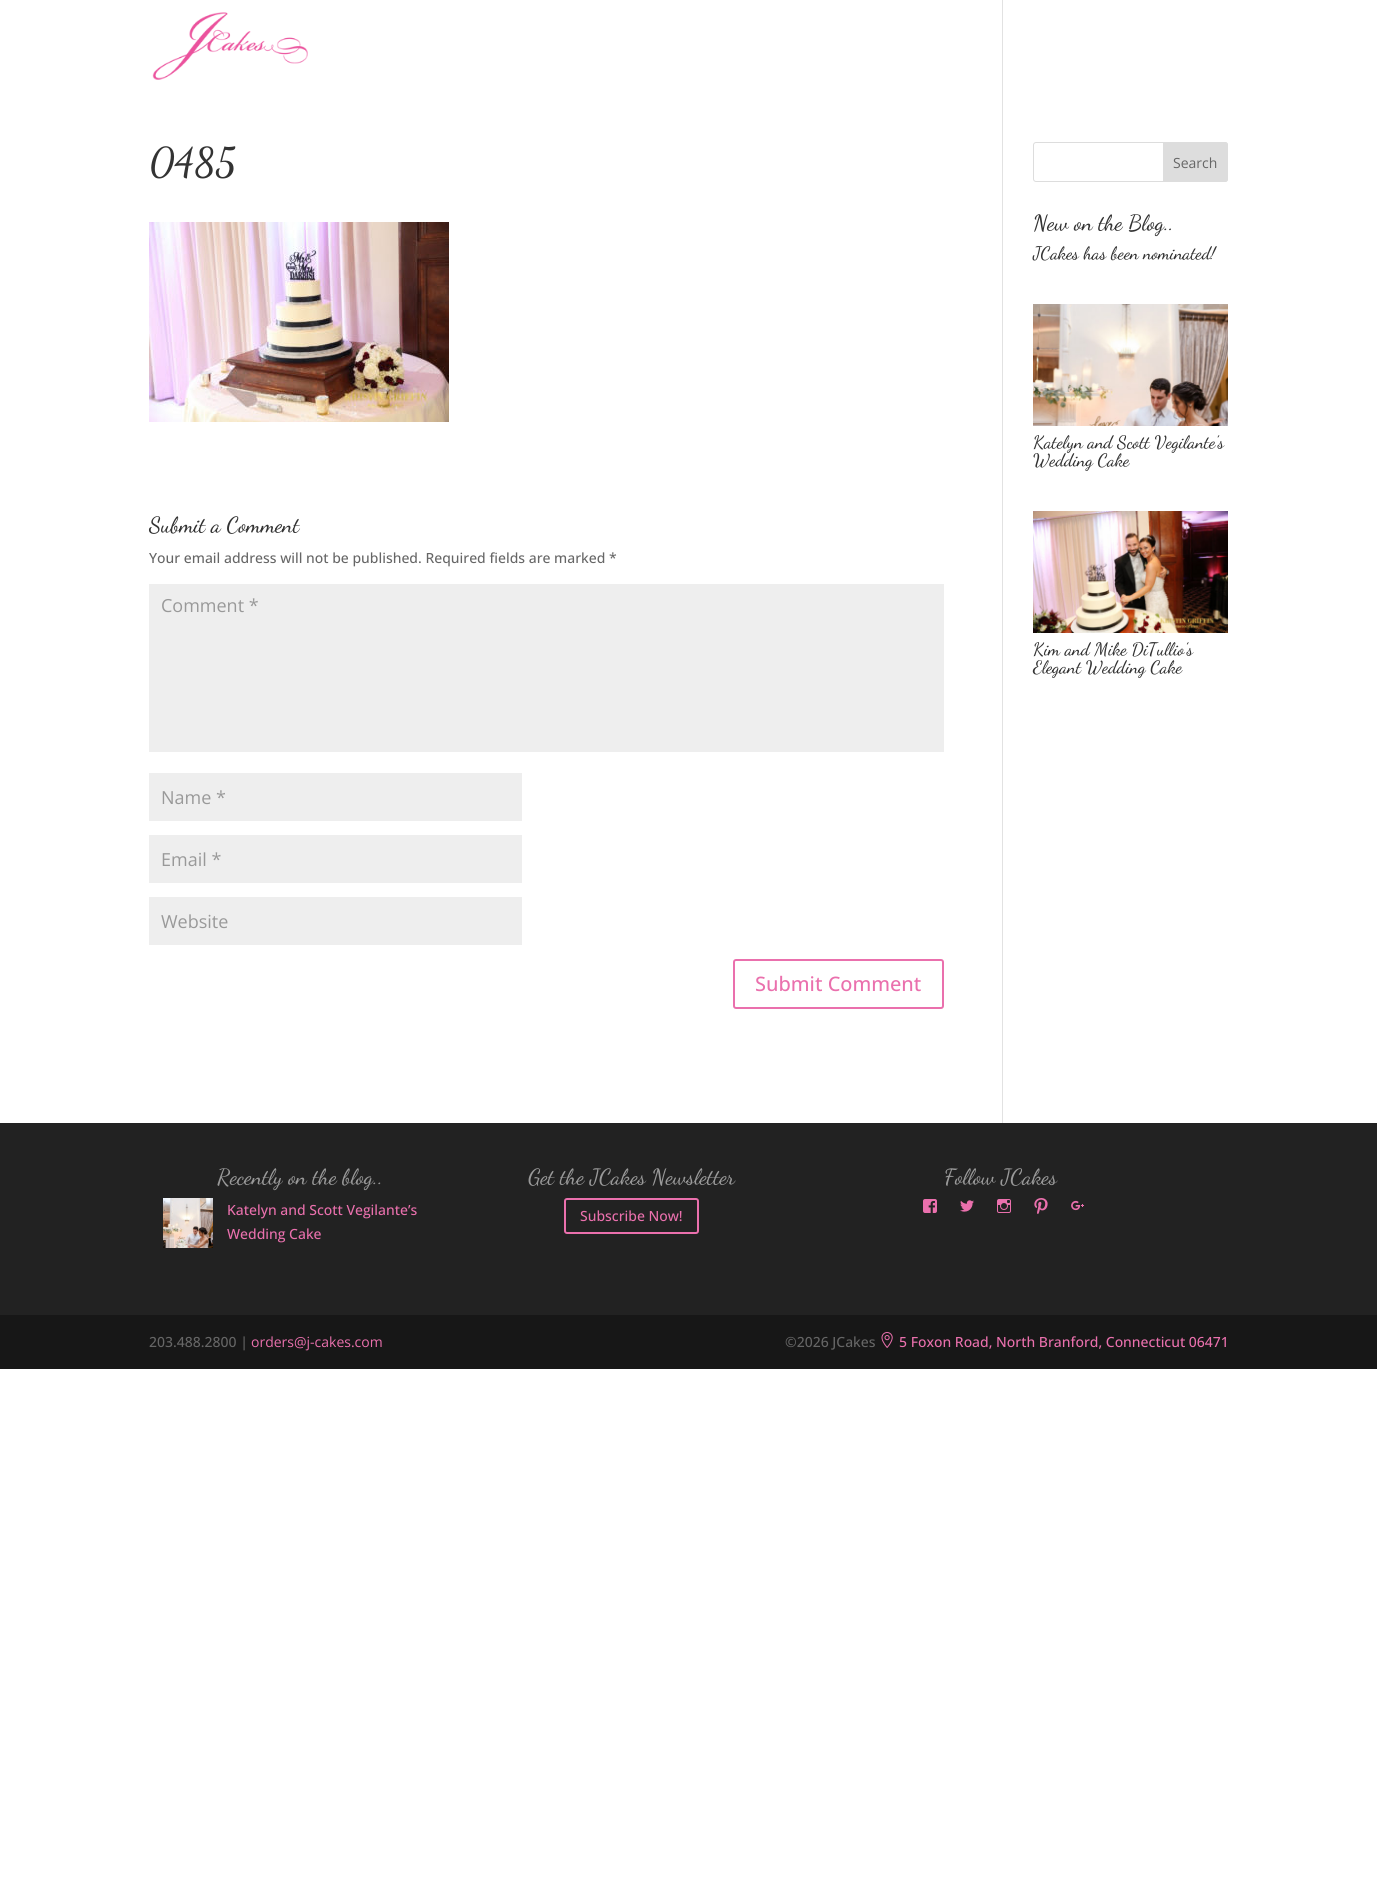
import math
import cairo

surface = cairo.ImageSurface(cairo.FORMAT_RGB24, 1377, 1882)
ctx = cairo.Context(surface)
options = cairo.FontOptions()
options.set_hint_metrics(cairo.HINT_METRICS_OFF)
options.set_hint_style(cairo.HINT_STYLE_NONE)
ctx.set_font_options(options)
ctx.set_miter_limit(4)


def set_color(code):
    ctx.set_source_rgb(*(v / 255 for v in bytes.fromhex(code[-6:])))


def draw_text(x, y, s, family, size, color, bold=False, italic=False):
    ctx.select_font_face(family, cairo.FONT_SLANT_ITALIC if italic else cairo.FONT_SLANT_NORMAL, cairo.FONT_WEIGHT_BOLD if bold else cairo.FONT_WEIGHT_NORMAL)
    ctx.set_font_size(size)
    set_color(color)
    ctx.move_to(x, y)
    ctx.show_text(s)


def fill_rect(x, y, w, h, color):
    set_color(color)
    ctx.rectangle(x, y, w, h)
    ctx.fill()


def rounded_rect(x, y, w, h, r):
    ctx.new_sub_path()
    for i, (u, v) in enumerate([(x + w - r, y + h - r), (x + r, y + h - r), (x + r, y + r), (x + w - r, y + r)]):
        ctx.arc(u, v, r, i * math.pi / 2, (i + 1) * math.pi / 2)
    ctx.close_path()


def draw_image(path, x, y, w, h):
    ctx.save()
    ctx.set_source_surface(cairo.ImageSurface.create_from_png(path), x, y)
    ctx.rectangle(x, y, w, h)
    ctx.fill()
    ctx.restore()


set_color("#ffffff")
ctx.paint()
draw_image("assets/img1.png", 152, 12, 156, 68)
fill_rect(1002, 0, 1, 1123, "#e2e2e2")
draw_text(149, 175, "0485", "Dancing Script Medium", 40, "#333333")
draw_image("assets/img2.png", 149, 222, 300, 200)
draw_text(149, 532, "Submit a Comment", "Dancing Script Medium", 22, "#333333")
draw_text(149, 563, "Your email address will not be published. Required fields are marked *", "Open Sans Medium", 14, "#666666")
fill_rect(149, 584, 795, 168, "#eeeeee")
draw_text(161, 612, "Comment *", "Open Sans", 18, "#999999")
fill_rect(149, 773, 373, 48, "#eeeeee")
draw_text(161, 804, "Name *", "Open Sans", 18, "#999999")
fill_rect(149, 835, 373, 48, "#eeeeee")
draw_text(161, 866, "Email *", "Open Sans", 18, "#999999")
fill_rect(149, 897, 373, 48, "#eeeeee")
draw_text(161, 928, "Website", "Open Sans", 18, "#999999")
rounded_rect(734, 960, 209, 48, 2)
set_color("#ea70ad")
ctx.stroke()
draw_text(755, 991, "Submit Comment", "Open Sans Medium", 20, "#ea70ad")
rounded_rect(1033.5, 142.5, 194, 39, 2.5)
set_color("#dddddd")
ctx.set_line_width(1)
ctx.stroke()
ctx.new_path()
ctx.move_to(1163.5, 142.5)
ctx.line_to(1225, 142.5)
ctx.curve_to(1226.5, 142.5, 1227.5, 143.5, 1227.5, 145)
ctx.line_to(1227.5, 179)
ctx.curve_to(1227.5, 180.5, 1226.5, 181.5, 1225, 181.5)
ctx.line_to(1163.5, 181.5)
ctx.close_path()
ctx.fill_preserve()
ctx.stroke()
draw_text(1173, 168, "Search", "Open Sans", 14, "#666666")
draw_text(1033, 230, "New on the Blog..", "Dancing Script Medium", 22, "#333333")
draw_text(1033, 259, "JCakes has been nominated!", "Dancing Script Medium", 18, "#333333")
draw_image("assets/img3.png", 1033, 304, 195, 122)
draw_text(1033, 448, "Katelyn and Scott Vegilante’s", "Dancing Script Medium", 18, "#333333")
draw_text(1033, 466, "Wedding Cake", "Dancing Script Medium", 18, "#333333")
draw_image("assets/img4.png", 1033, 511, 195, 122)
draw_text(1033, 655, "Kim and Mike DiTullio’s", "Dancing Script Medium", 18, "#333333")
draw_text(1033, 673, "Elegant Wedding Cake", "Dancing Script Medium", 18, "#333333")
fill_rect(0, 1123, 1377, 192, "#222222")
draw_text(217, 1184, "Recently on the blog..", "Dancing Script Medium", 22, "#999999")
draw_image("assets/img5.png", 163, 1198, 50, 50)
draw_text(227, 1215, "Katelyn and Scott Vegilante’s", "Open Sans Medium", 14, "#ea70ad")
draw_text(227, 1239, "Wedding Cake", "Open Sans Medium", 14, "#ea70ad")
draw_text(528, 1184, "Get the JCakes Newsletter", "Dancing Script Medium", 22, "#999999")
rounded_rect(565, 1199, 133, 34, 2)
set_color("#ea70ad")
ctx.set_line_width(2)
ctx.stroke()
draw_text(580, 1221, "Subscribe Now!", "Open Sans Medium", 14, "#ea70ad")
draw_text(944, 1184, "Follow JCakes", "Dancing Script Medium", 22, "#999999")
draw_image("assets/img6.png", 923, 1199, 14, 14)
draw_image("assets/img7.png", 960, 1200, 14, 12)
draw_image("assets/img8.png", 997, 1199, 14, 14)
draw_image("assets/img9.png", 1034, 1198, 14, 16)
draw_image("assets/img10.png", 1071, 1200, 13, 11)
fill_rect(0, 1315, 1377, 54, "#171717")
draw_text(149, 1347, "203.488.2800 |", "Open Sans Medium", 14, "#666666")
draw_text(251, 1347, "orders@j-cakes.com", "Open Sans", 14, "#ea70ad")
draw_text(785, 1347, "©2026 JCakes", "Open Sans Medium", 14, "#666666")
draw_image("assets/img11.png", 881, 1332, 12, 16)
draw_text(899, 1347, "5 Foxon Road, North Branford, Connecticut 06471", "Open Sans Medium", 14, "#ea70ad")
surface.write_to_png("output.png")
